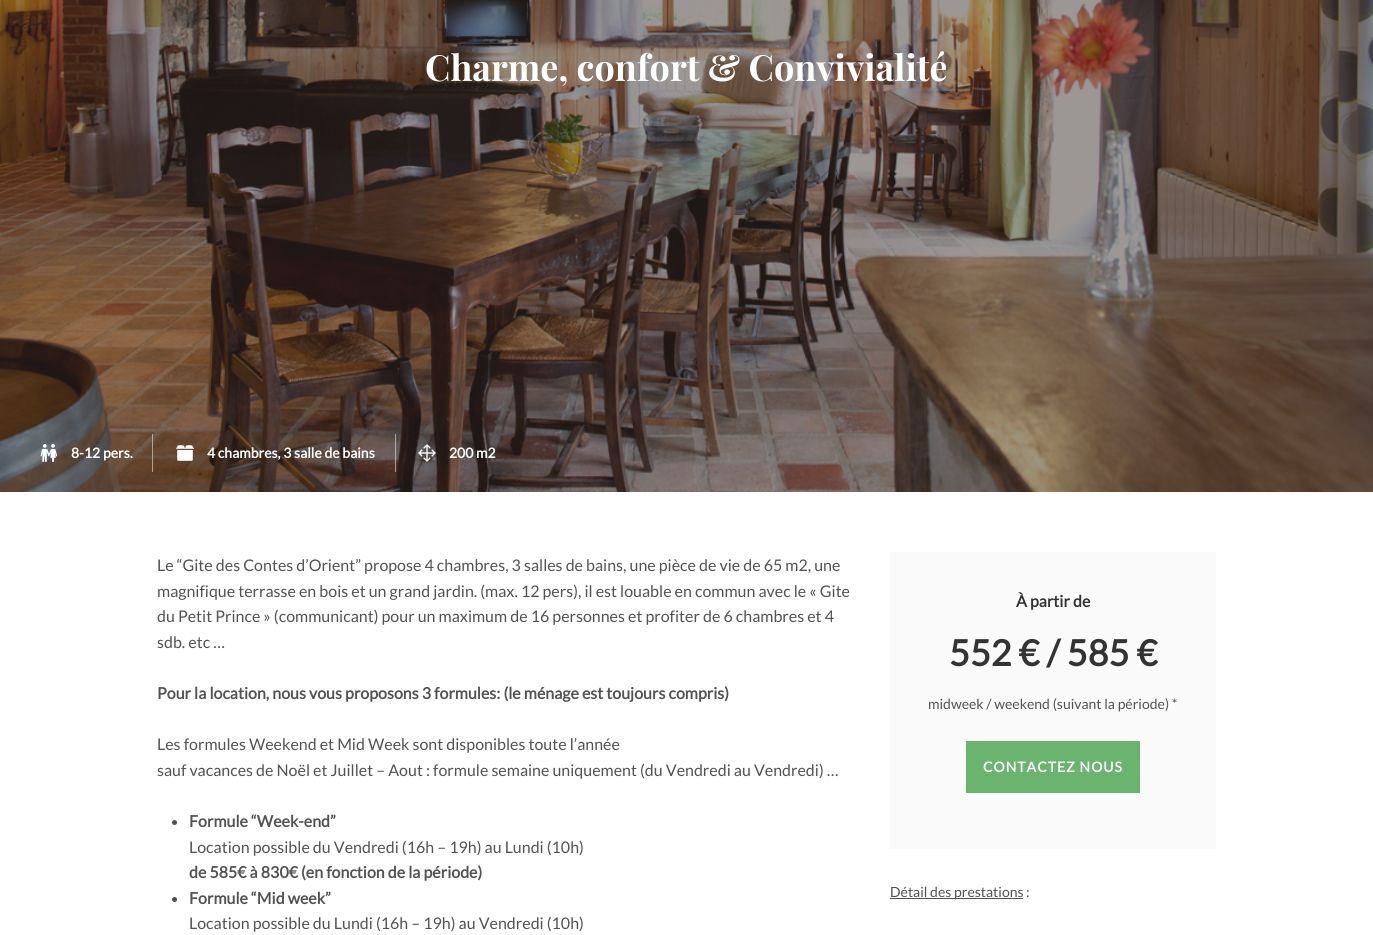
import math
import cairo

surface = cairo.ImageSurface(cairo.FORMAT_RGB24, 1373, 935)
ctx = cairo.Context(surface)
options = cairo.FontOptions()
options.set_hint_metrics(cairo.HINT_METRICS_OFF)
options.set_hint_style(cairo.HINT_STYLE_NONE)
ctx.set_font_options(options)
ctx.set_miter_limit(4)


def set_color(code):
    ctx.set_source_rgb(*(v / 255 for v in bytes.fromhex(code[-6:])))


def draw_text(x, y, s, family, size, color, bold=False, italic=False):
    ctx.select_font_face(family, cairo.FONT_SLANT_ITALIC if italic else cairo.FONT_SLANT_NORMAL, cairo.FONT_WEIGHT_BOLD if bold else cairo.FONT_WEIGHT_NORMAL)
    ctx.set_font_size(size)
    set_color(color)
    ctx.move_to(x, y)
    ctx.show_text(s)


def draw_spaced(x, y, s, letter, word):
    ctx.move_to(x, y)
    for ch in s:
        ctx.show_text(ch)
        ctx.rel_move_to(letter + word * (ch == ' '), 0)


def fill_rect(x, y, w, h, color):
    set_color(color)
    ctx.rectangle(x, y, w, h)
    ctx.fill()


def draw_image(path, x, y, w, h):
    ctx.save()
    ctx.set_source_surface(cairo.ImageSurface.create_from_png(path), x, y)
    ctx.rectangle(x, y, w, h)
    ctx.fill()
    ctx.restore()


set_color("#ffffff")
ctx.paint()
draw_image("assets/img1.png", 0, 0, 1373, 492)
draw_text(425, 81, "Charme, confort & Convivialité", "Playfair Display", 36, "#ffffff", bold=True)
ctx.set_source_rgba(1, 1, 1, 0.5)
ctx.rectangle(152, 434, 1, 38)
ctx.fill()
draw_image("assets/img2.png", 40, 444, 18, 18)
draw_text(71, 458, "8-12 pers.", "Lato", 14, "#ffffff", bold=True)
ctx.set_source_rgba(1, 1, 1, 0.5)
ctx.rectangle(395, 434, 1, 38)
ctx.fill()
draw_image("assets/img3.png", 176, 445, 18, 16)
draw_text(207, 458, "4 chambres, 3 salle de bains", "Lato", 14, "#ffffff", bold=True)
draw_image("assets/img4.png", 418, 444, 18, 18)
draw_text(449, 458, "200 m2", "Lato", 14, "#ffffff", bold=True)
draw_text(157, 571, "Le “Gite des Contes d’Orient” propose 4 chambres, 3 salles de bains, une pièce de vie de 65 m2, une", "Lato", 16, "#525252")
draw_text(157, 597, "magnifique terrasse en bois et un grand jardin. (max. 12 pers), il est louable en commun avec le « Gite", "Lato", 16, "#525252")
draw_text(157, 622, "du Petit Prince » (communicant) pour un maximum de 16 personnes et profiter de 6 chambres et 4", "Lato", 16, "#525252")
draw_text(157, 648, "sdb. etc …", "Lato", 16, "#525252")
draw_text(157, 699, "Pour la location, nous vous proposons 3 formules: (le ménage est toujours compris)", "Lato", 16, "#525252", bold=True)
draw_text(157, 750, "Les formules Weekend et Mid Week sont disponibles toute l’année", "Lato", 16, "#525252")
draw_text(157, 776, "sauf vacances de Noël et Juillet – Aout : formule semaine uniquement (du Vendredi au Vendredi) …", "Lato", 16, "#525252")
ctx.new_path()
ctx.arc(174.5, 822.5, 2.5, 0, 2 * math.pi)
ctx.fill()
draw_text(189, 827, "Formule “Week-end”", "Lato", 16, "#525252", bold=True)
draw_text(189, 853, "Location possible du Vendredi (16h – 19h) au Lundi (10h)", "Lato", 16, "#525252")
draw_text(189, 878, "de 585€ à 830€ (en fonction de la période)", "Lato", 16, "#525252", bold=True)
ctx.new_path()
ctx.arc(174.5, 899.5, 2.5, 0, 2 * math.pi)
ctx.fill()
draw_text(189, 904, "Formule “Mid week”", "Lato", 16, "#525252", bold=True)
draw_text(189, 929, "Location possible du Lundi (16h – 19h) au Vendredi (10h)", "Lato", 16, "#525252")
fill_rect(890, 552, 326, 297, "#fafafa")
draw_text(1016, 607, "À partir de", "Lato", 16, "#333333", bold=True)
draw_text(949, 666, "552 € / 585 €", "Lato", 36, "#333333", bold=True)
draw_text(928, 709, "midweek / weekend (suivant la période) *", "Lato", 14, "#525252")
fill_rect(966, 741, 174, 52, "#6bb470")
ctx.select_font_face("Lato", cairo.FONT_SLANT_NORMAL, cairo.FONT_WEIGHT_BOLD)
set_color("#ffffff")
draw_spaced(983, 772, "CONTACTEZ NOUS", 1, 0)
fill_rect(890, 898, 133, 1, "#525252")
draw_text(890, 897, "Détail des prestations", "Lato", 14, "#525252")
draw_text(1026, 897, ":", "Lato", 14, "#525252")
surface.write_to_png("output.png")
